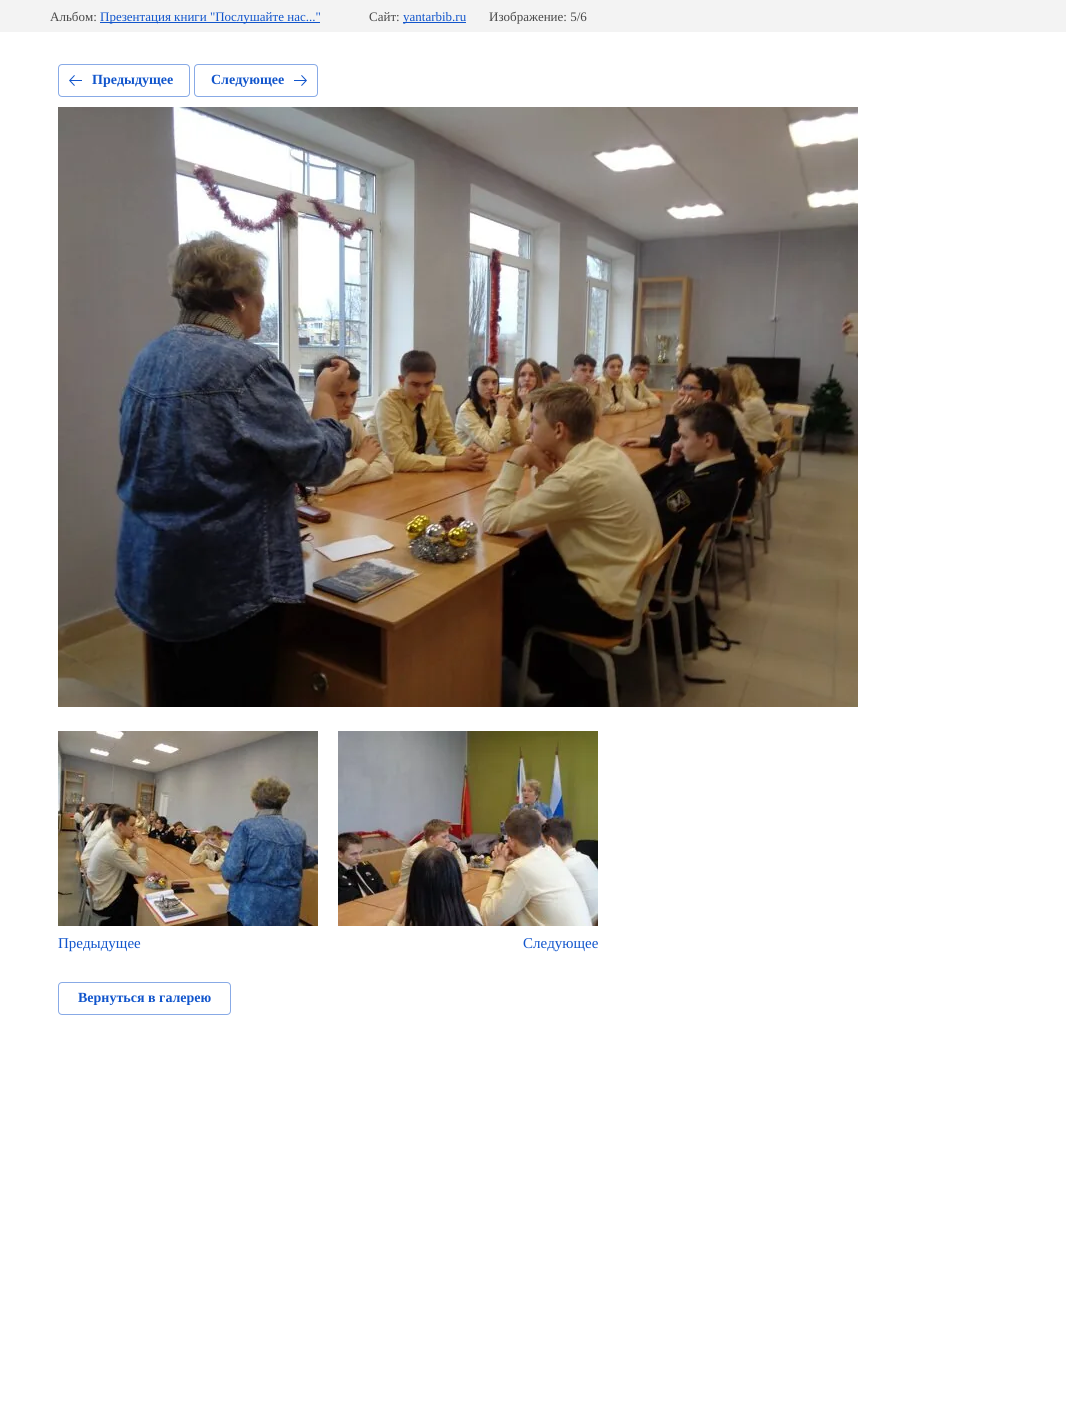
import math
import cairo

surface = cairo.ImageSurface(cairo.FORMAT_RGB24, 1066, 1403)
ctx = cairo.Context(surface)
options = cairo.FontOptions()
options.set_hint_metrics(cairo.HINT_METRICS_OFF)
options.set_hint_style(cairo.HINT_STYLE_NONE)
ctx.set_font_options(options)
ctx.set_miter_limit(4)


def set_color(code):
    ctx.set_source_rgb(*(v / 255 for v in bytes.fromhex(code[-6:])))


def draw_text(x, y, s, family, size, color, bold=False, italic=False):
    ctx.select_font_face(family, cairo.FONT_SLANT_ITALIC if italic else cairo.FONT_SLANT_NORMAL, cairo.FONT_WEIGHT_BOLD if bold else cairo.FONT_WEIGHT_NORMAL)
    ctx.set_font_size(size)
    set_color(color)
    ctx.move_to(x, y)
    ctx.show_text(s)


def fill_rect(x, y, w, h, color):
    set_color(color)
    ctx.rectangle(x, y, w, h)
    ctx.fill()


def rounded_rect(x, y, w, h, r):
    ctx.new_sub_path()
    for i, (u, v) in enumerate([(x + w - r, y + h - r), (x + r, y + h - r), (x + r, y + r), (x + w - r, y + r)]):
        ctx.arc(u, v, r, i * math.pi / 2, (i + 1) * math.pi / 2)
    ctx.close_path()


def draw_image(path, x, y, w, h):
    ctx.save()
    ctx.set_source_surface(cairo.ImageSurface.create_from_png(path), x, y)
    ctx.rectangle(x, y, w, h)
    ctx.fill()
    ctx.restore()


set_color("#ffffff")
ctx.paint()
fill_rect(0, 0, 1066, 32, "#f3f3f3")
draw_text(50, 21, "Альбом:", "Liberation Serif", 13, "#484848")
fill_rect(100, 22, 220, 1, "#1155cc")
draw_text(100, 21, "Презентация книги \"Послушайте нас...\"", "Liberation Serif", 13, "#1155cc")
draw_text(369, 21, "Сайт:", "Liberation Serif", 13, "#484848")
fill_rect(403, 22, 63, 1, "#1155cc")
draw_text(403, 21, "yantarbib.ru", "Liberation Serif", 13, "#1155cc")
draw_text(489, 21, "Изображение: 5/6", "Liberation Serif", 13, "#484848")
rounded_rect(58.5, 64.5, 131, 32, 3.5)
set_color("#88aae6")
ctx.set_line_width(1)
ctx.stroke()
draw_image("assets/img1.png", 69, 75, 13, 11)
draw_text(92, 84, "Предыдущее", "Liberation Serif", 14, "#1155cc", bold=True)
rounded_rect(194.5, 64.5, 123, 32, 3.5)
set_color("#88aae6")
ctx.stroke()
draw_text(211, 84, "Следующее", "Liberation Serif", 14, "#1155cc", bold=True)
draw_image("assets/img2.png", 294, 75, 13, 11)
draw_image("assets/img3.png", 58, 107, 800, 600)
draw_image("assets/img4.png", 58, 731, 260, 195)
draw_text(58, 948, "Предыдущее", "Liberation Serif", 15, "#1155cc")
draw_image("assets/img5.png", 338, 731, 260, 195)
draw_text(523, 948, "Следующее", "Liberation Serif", 15, "#1155cc")
rounded_rect(58.5, 982.5, 172, 32, 3.5)
set_color("#88aae6")
ctx.stroke()
draw_text(78, 1002, "Вернуться в галерею", "Liberation Serif", 14, "#1155cc", bold=True)
surface.write_to_png("output.png")
